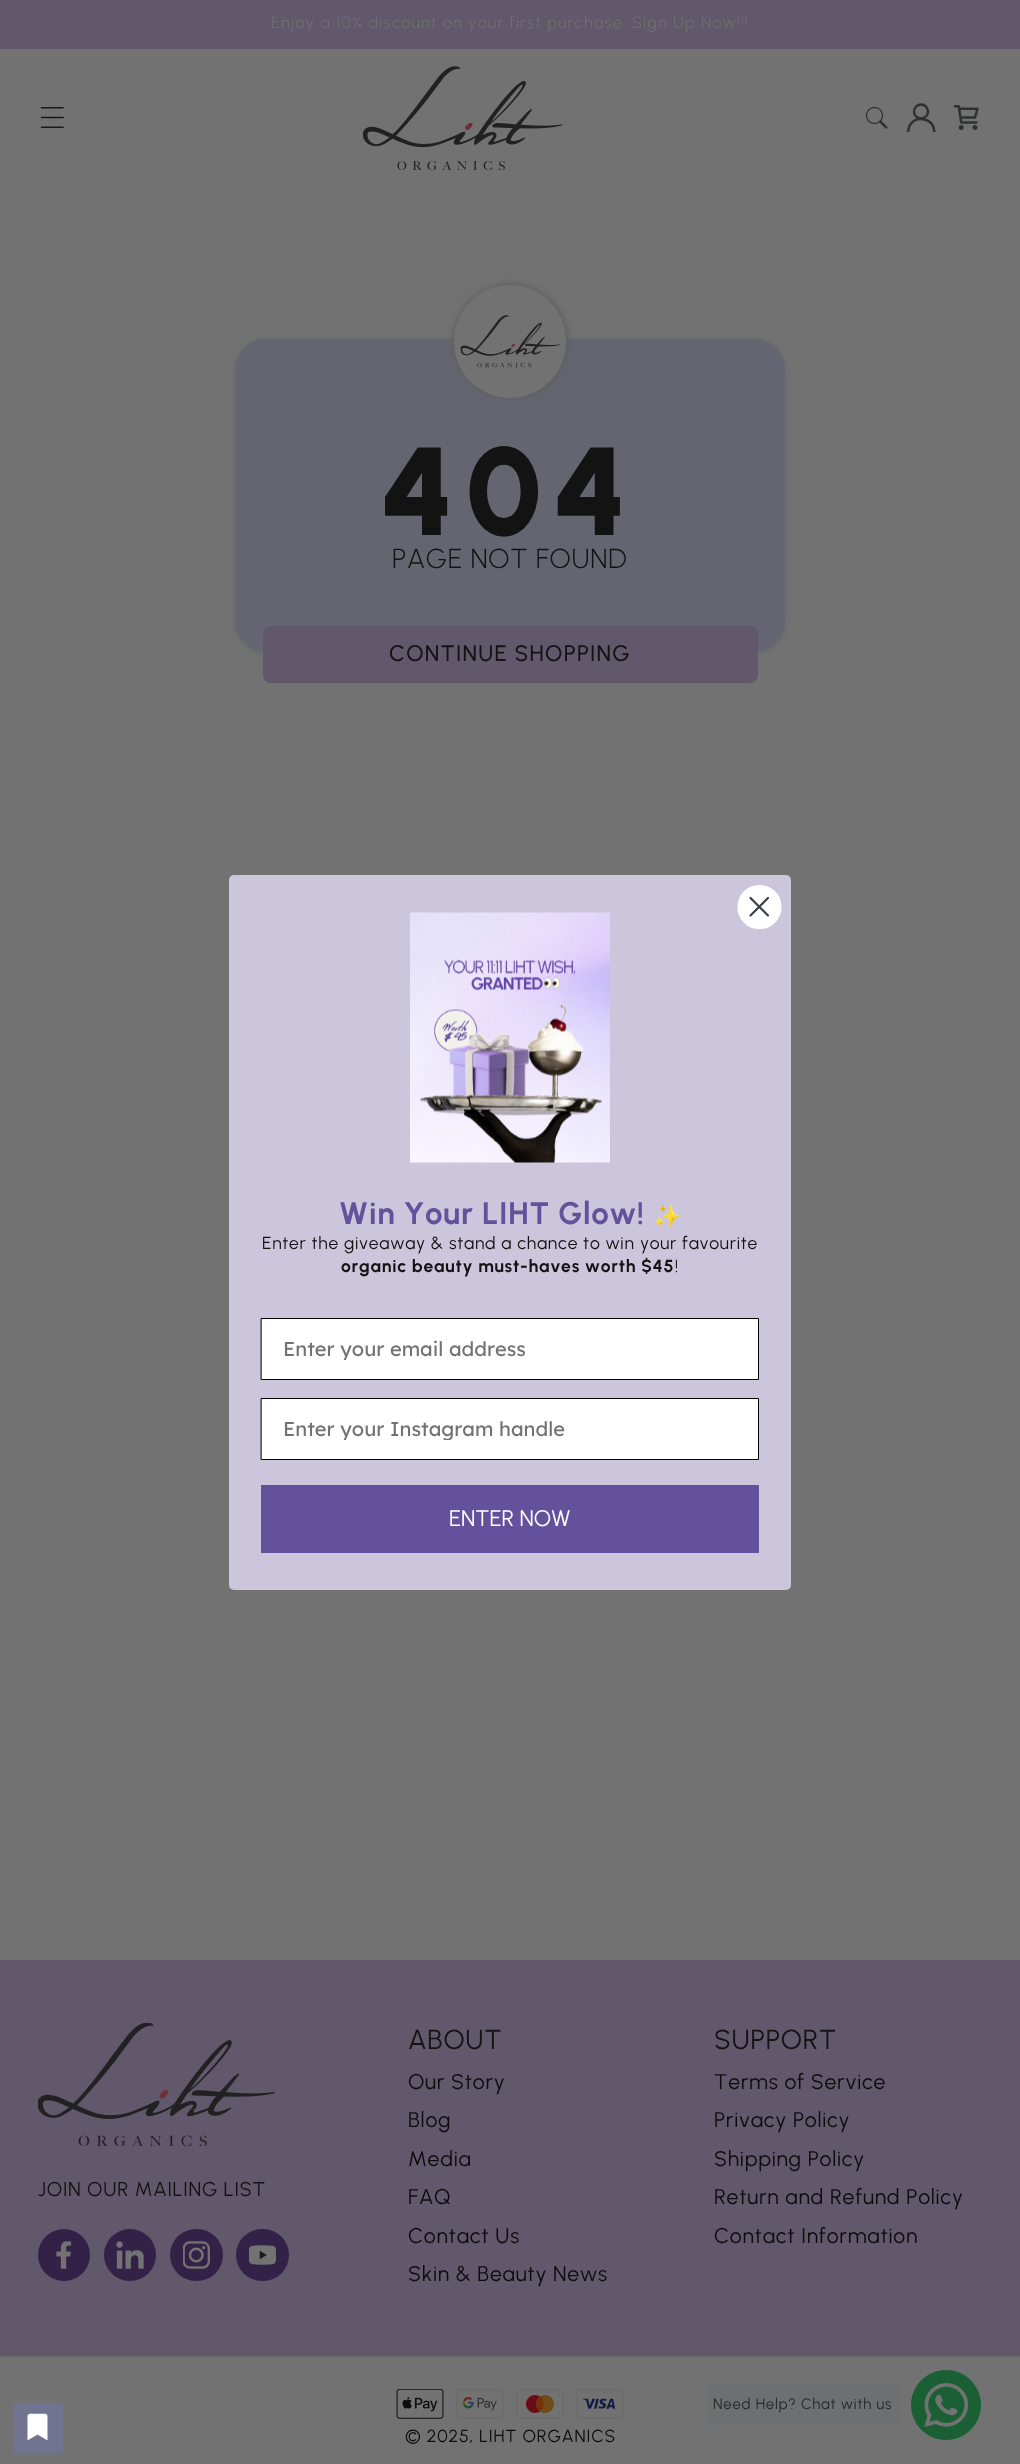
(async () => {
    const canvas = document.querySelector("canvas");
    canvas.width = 1020;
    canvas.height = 2464;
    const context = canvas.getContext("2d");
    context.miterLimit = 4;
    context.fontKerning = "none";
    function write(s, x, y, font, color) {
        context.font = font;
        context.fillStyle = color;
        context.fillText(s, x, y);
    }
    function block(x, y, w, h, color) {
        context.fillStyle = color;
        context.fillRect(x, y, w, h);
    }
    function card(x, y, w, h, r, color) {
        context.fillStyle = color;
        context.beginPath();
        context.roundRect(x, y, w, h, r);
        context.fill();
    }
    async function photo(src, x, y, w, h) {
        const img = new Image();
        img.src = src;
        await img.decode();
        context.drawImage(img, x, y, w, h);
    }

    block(0, 0, 1020, 2464, "rgb(114, 114, 114)");
    block(0, 0, 1020, 48, "rgb(97, 88, 108)");
    block(0, 48, 1020, 1, "rgb(98, 90, 108)");
    context.letterSpacing = "1.25px";
    write("Enjoy a 10% discount on your first purchase. Sign Up Now!!!", 271, 28, "300 16.25px Urbanist", "rgb(114, 114, 114)");
    await photo("media/1.png", 40, 107, 24, 21);
    await photo("media/2.png", 363, 66, 200, 104);
    await photo("media/3.png", 865, 106, 23, 23);
    context.beginPath();
    context.arc(921, 111.5, 7, 0, Math.PI * 2);
    context.strokeStyle = "rgb(47, 48, 48)";
    context.lineWidth = 2.4;
    context.stroke();
    context.beginPath();
    context.moveTo(908, 132);
    context.lineTo(908.5, 129.5);
    context.bezierCurveTo(909.5, 123, 915, 118.5, 921, 119);
    context.bezierCurveTo(927.5, 119, 933, 123, 934, 129.5);
    context.lineTo(934.5, 132);
    context.stroke();
    await photo("media/4.png", 953, 105, 26, 25);
    context.fillStyle = "rgb(101, 101, 114)";
    context.filter = "blur(2.5px)";
    context.beginPath();
    context.roundRect(235, 340, 550, 313, 31);
    context.fill();
    context.filter = "none";
    card(235, 339, 550, 312, 31, "rgb(101, 101, 114)");
    context.fillStyle = "rgb(94, 94, 94)";
    context.filter = "blur(3px)";
    context.beginPath();
    context.roundRect(453, 284, 115, 115, 57.5);
    context.fill();
    context.filter = "none";
    card(454, 285, 112, 113, 56, "rgb(114, 114, 114)");
    await photo("media/5.png", 460, 315, 100, 53);
    context.letterSpacing = "11px";
    write("404", 380, 535, "900 125px Urbanist", "rgb(19, 19, 19)");
    context.letterSpacing = "0.75px";
    write("PAGE NOT FOUND", 392, 568, "300 27.5px Urbanist", "rgb(19, 19, 19)");
    card(263, 626, 495, 57, 8, "rgb(97, 88, 108)");
    context.letterSpacing = "1.25px";
    write("CONTINUE SHOPPING", 389, 661, "500 22.5px Urbanist", "rgb(19, 19, 19)");
    card(229, 875, 562, 715, 5, "rgb(203, 198, 219)");
    context.fillStyle = "rgb(255, 255, 255)";
    context.beginPath();
    context.arc(759.5, 907, 21, 0, Math.PI * 2);
    context.fill();
    context.strokeStyle = "rgb(255, 255, 255)";
    context.lineWidth = 2.2;
    context.stroke();
    context.beginPath();
    context.moveTo(750.5, 898);
    context.lineTo(768, 915.5);
    context.moveTo(750.5, 915.5);
    context.lineTo(768, 898);
    context.closePath();
    context.strokeStyle = "rgb(55, 63, 71)";
    context.lineCap = "round";
    context.lineJoin = "round";
    context.stroke();
    await photo("media/6.png", 410, 912, 200, 251);
    context.letterSpacing = "0.75px";
    write("Win Your LIHT Glow!", 339, 1224, "bold 31.25px Urbanist", "rgb(99, 81, 155)");
    write("✨", 653, 1224, "22.5px Noto Color Emoji", "rgb(99, 81, 155)");
    write("Enter the giveaway & stand a chance to win", 262, 1249, "17.5px Urbanist", "rgb(19, 19, 19)");
    write("your favourite", 640, 1249, "17.5px Urbanist", "rgb(19, 19, 19)");
    write("organic beauty must-haves", 341, 1272, "bold 17.5px Urbanist", "rgb(19, 19, 19)");
    write("worth $45", 585, 1272, "bold 17.5px Urbanist", "rgb(19, 19, 19)");
    write("!", 675, 1272, "17.5px Urbanist", "rgb(19, 19, 19)");
    context.fillStyle = "rgb(255, 255, 255)";
    context.beginPath();
    context.rect(261.5, 1318.5, 497, 61);
    context.fill();
    context.strokeStyle = "rgb(5, 5, 5)";
    context.lineWidth = 1;
    context.lineJoin = "miter";
    context.stroke();
    context.save();
    context.beginPath();
    context.rect(283, 1335, 475, 25);
    context.clip();
    context.letterSpacing = "0px";
    write("Enter your email address", 283, 1356, "20px Lexend", "rgb(114, 114, 114)");
    context.restore();
    context.beginPath();
    context.rect(261.5, 1398.5, 497, 61);
    context.fill();
    context.stroke();
    context.save();
    context.beginPath();
    context.rect(283, 1415, 475, 25);
    context.clip();
    context.letterSpacing = "0px";
    write("Enter your Instagram handle", 283, 1436, "20px Lexend", "rgb(114, 114, 114)");
    context.restore();
    block(261, 1485, 498, 68, "rgb(99, 81, 155)");
    context.letterSpacing = "0px";
    write("ENTER NOW", 449, 1526, "22.5px Urbanist", "rgb(255, 255, 255)");
    block(0, 1960, 1020, 396, "rgb(97, 88, 108)");
    await photo("media/7.png", 38, 2023, 237, 123);
    context.letterSpacing = "0.75px";
    write("JOIN OUR MAILING LIST", 38, 2196, "20px Urbanist", "rgb(19, 19, 19)");
    context.fillStyle = "rgb(51, 33, 71)";
    context.beginPath();
    context.arc(64, 2255, 26, 0, Math.PI * 2);
    context.fill();
    await photo("media/8.png", 56, 2241, 16, 28);
    context.beginPath();
    context.arc(130, 2255, 26, 0, Math.PI * 2);
    context.fill();
    await photo("media/9.png", 116, 2241, 28, 28);
    card(170, 2229, 53, 52, 26, "rgb(51, 33, 71)");
    await photo("media/10.png", 183, 2241, 27, 28);
    card(236, 2229, 53, 52, 26, "rgb(51, 33, 71)");
    await photo("media/11.png", 249, 2245, 27, 20);
    write("ABOUT", 408, 2049, "27.5px Urbanist", "rgb(19, 19, 19)");
    write("Our Story", 408, 2089, "21.25px Urbanist", "rgb(12, 12, 12)");
    write("Blog", 408, 2127, "21.25px Urbanist", "rgb(12, 12, 12)");
    write("Media", 408, 2166, "21.25px Urbanist", "rgb(12, 12, 12)");
    write("FAQ", 408, 2204, "21.25px Urbanist", "rgb(12, 12, 12)");
    write("Contact Us", 408, 2243, "21.25px Urbanist", "rgb(12, 12, 12)");
    write("Skin & Beauty News", 408, 2281, "21.25px Urbanist", "rgb(12, 12, 12)");
    write("SUPPORT", 714, 2049, "27.5px Urbanist", "rgb(19, 19, 19)");
    write("Terms of Service", 714, 2089, "21.25px Urbanist", "rgb(12, 12, 12)");
    write("Privacy Policy", 714, 2127, "21.25px Urbanist", "rgb(12, 12, 12)");
    write("Shipping Policy", 714, 2166, "21.25px Urbanist", "rgb(12, 12, 12)");
    write("Return and Refund Policy", 714, 2204, "21.25px Urbanist", "rgb(12, 12, 12)");
    write("Contact Information", 714, 2243, "21.25px Urbanist", "rgb(12, 12, 12)");
    block(0, 2356, 1020, 1, "rgb(106, 106, 106)");
    await photo("media/12.png", 396, 2389, 48, 30);
    await photo("media/13.png", 456, 2389, 48, 30);
    await photo("media/14.png", 516, 2389, 48, 30);
    await photo("media/15.png", 576, 2389, 48, 30);
    context.letterSpacing = "0.9px";
    write("© 2025, LIHT ORGANICS", 405, 2442, "17.5px Urbanist", "rgb(12, 12, 12)");
    block(13, 2403, 50, 50, "rgb(114, 114, 145)");
    await photo("media/16.png", 27, 2413, 21, 28);
    card(708, 2385, 191, 40, 6, "rgb(110, 111, 112)");
    context.letterSpacing = "0.75px";
    write("Need Help? Chat with us", 713, 2409, "15px Urbanist", "rgb(39, 40, 43)");
    await photo("media/17.png", 911, 2370, 70, 70);
})();
